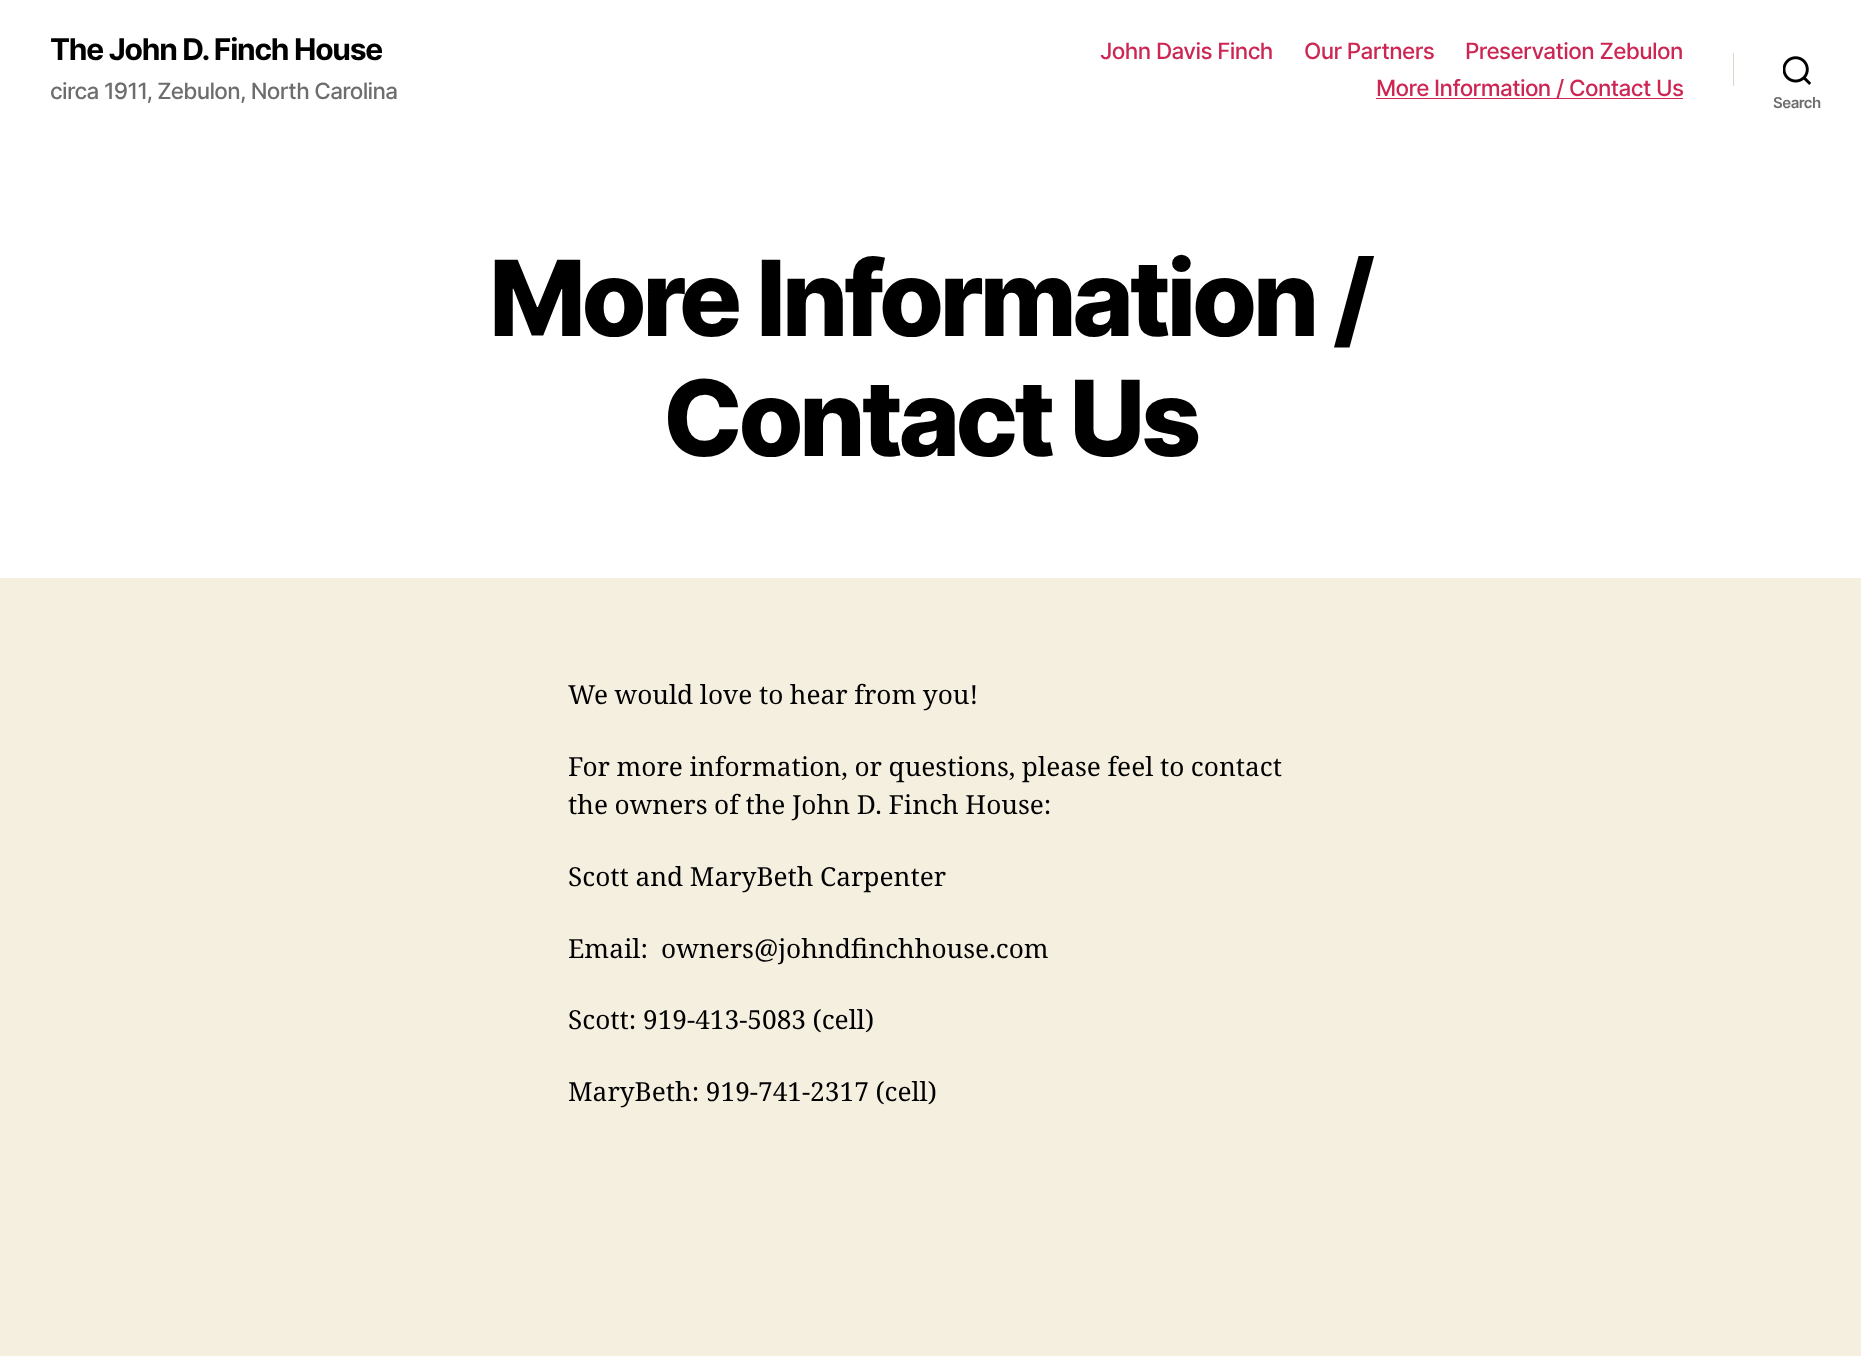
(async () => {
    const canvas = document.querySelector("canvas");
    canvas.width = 1861;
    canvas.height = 1358;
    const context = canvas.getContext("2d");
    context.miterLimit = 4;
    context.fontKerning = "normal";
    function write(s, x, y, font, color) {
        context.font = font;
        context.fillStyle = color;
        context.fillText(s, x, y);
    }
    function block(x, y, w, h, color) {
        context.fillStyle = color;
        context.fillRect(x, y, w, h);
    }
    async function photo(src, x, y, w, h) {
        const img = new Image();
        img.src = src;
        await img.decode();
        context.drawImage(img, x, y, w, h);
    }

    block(0, 0, 1861, 1358, "rgb(245, 239, 224)");
    block(0, 0, 1861, 578, "rgb(255, 255, 255)");
    context.letterSpacing = "-1.25px";
    write("The John D. Finch House", 50, 60, "bold 30px Inter", "rgb(0, 0, 0)");
    context.letterSpacing = "-0.7px";
    write("circa 1911, Zebulon, North Carolina", 50, 99, "500 22.5px Inter", "rgb(109, 109, 109)");
    context.letterSpacing = "-0.6px";
    write("John Davis Finch", 1100, 59, "500 22.5px Inter", "rgb(205, 38, 83)");
    write("Our Partners", 1304, 59, "500 22.5px Inter", "rgb(205, 38, 83)");
    write("Preservation Zebulon", 1465, 59, "500 22.5px Inter", "rgb(205, 38, 83)");
    block(1376, 98, 307, 1, "rgb(205, 38, 83)");
    write("More Information / Contact Us", 1376, 96, "500 22.5px Inter", "rgb(205, 38, 83)");
    block(1733, 53, 1, 33, "rgb(220, 215, 202)");
    await photo("media/1.png", 1783, 56, 28, 29);
    context.letterSpacing = "-0.5px";
    write("Search", 1773, 108, "600 15px Inter", "rgb(109, 109, 109)");
    context.letterSpacing = "-4.4px";
    write("More Information /", 489, 336, "800 105px Inter", "rgb(0, 0, 0)");
    write("Contact Us", 663, 456, "800 105px Inter", "rgb(0, 0, 0)");
    context.letterSpacing = "0px";
    context.wordSpacing = "-0.25px";
    write("We would love to hear from you!", 568, 704, "26.25px Noto Serif", "rgb(0, 0, 0)");
    write("For more information, or questions, please feel to contact", 568, 776, "26.25px Noto Serif", "rgb(0, 0, 0)");
    write("the owners of the John D. Finch House:", 568, 814, "26.25px Noto Serif", "rgb(0, 0, 0)");
    write("Scott and MaryBeth Carpenter", 568, 886, "26.25px Noto Serif", "rgb(0, 0, 0)");
    context.wordSpacing = "0px";
    write("Email:", 568, 958, "26.25px Noto Serif", "rgb(0, 0, 0)");
    write("owners@johndfinchhouse.com", 661, 958, "26.25px Noto Serif", "rgb(0, 0, 0)");
    write("Scott:", 568, 1029, "26.25px Noto Serif", "rgb(0, 0, 0)");
    context.wordSpacing = "-0.25px";
    write("919-413-5083 (cell)", 643, 1029, "26.25px Noto Serif", "rgb(0, 0, 0)");
    write("MaryBeth: 919-741-2317 (cell)", 568, 1101, "26.25px Noto Serif", "rgb(0, 0, 0)");
    block(0, 1356, 1861, 2, "rgb(255, 255, 255)");
})();
